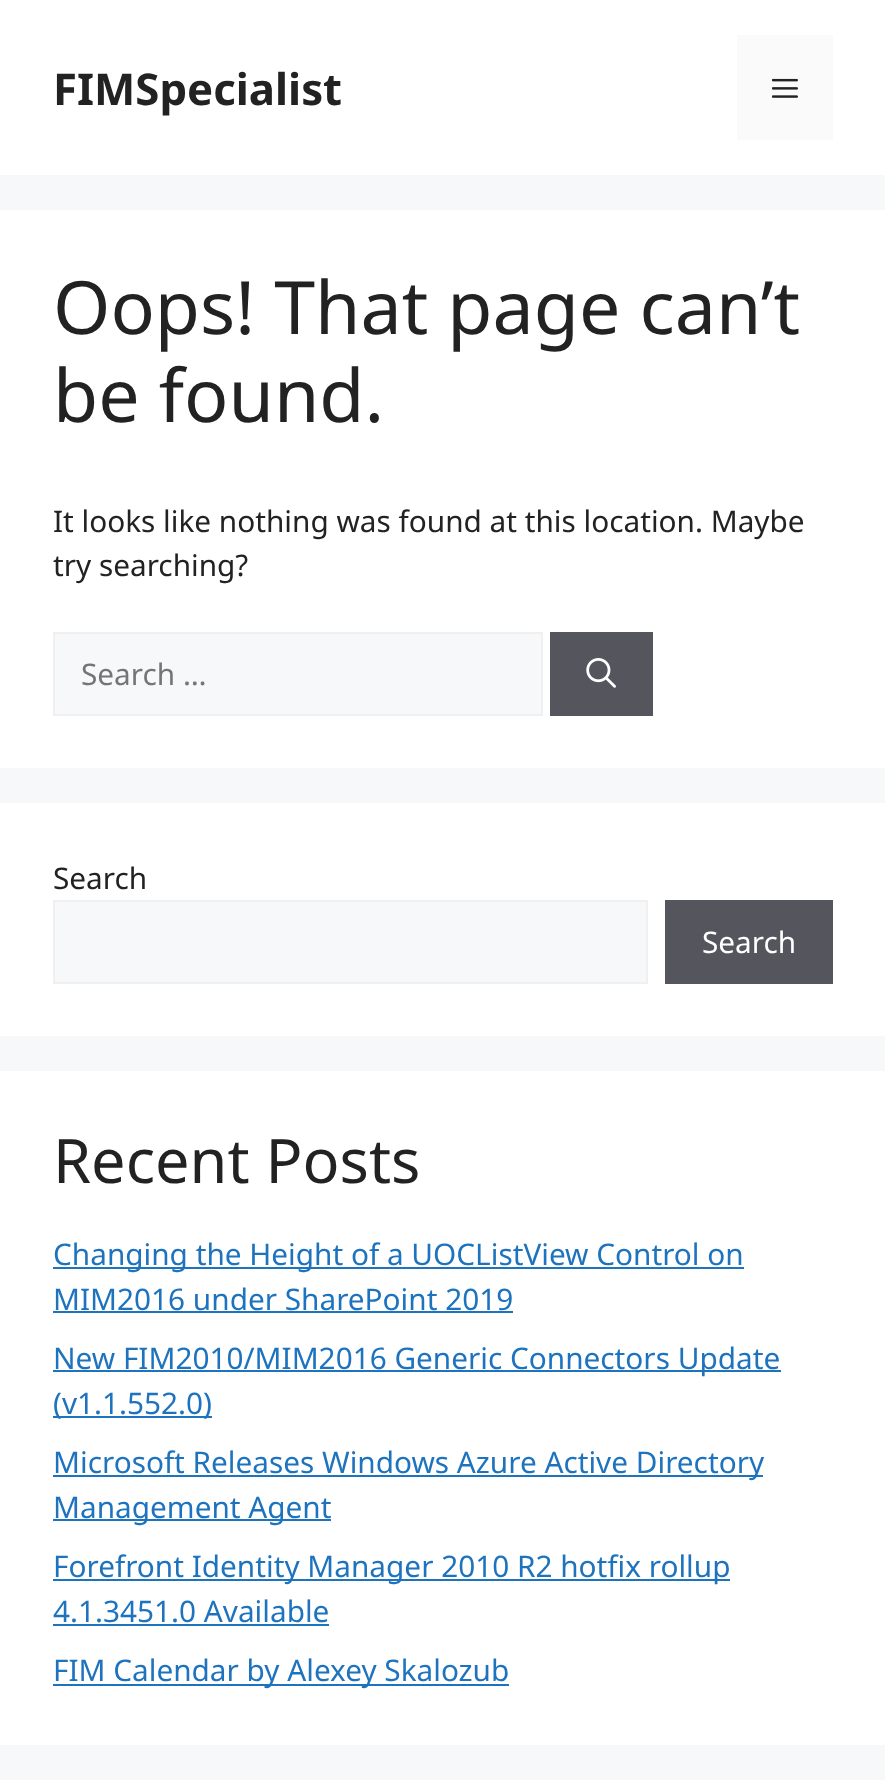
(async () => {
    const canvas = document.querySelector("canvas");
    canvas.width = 885;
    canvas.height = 1788;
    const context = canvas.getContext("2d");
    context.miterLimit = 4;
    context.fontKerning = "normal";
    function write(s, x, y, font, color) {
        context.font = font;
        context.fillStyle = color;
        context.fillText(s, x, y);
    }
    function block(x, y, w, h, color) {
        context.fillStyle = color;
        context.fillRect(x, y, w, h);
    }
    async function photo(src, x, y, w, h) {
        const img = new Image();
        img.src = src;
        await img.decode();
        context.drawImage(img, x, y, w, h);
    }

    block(0, 0, 885, 1788, "rgb(247, 248, 249)");
    block(0, 0, 885, 175, "rgb(255, 255, 255)");
    write("FIMSpecialist", 53, 105, "bold 43.75px Noto Sans", "rgb(34, 34, 34)");
    block(737, 35, 96, 105, "rgb(250, 250, 250)");
    await photo("media/1.png", 772, 78, 26, 20);
    block(0, 210, 885, 558, "rgb(255, 255, 255)");
    write("Oops! That page can’t", 53, 334, "73.5px Noto Sans", "rgb(34, 34, 34)");
    write("be found.", 53, 422, "73.5px Noto Sans", "rgb(34, 34, 34)");
    write("It looks like nothing was found at this location. Maybe", 53, 532, "29.75px Noto Sans", "rgb(34, 34, 34)");
    write("try searching?", 53, 576, "29.75px Noto Sans", "rgb(34, 34, 34)");
    context.fillStyle = "rgb(247, 248, 249)";
    context.beginPath();
    context.rect(54, 633, 488, 82);
    context.fill();
    context.strokeStyle = "rgb(240, 240, 240)";
    context.lineWidth = 2;
    context.stroke();
    write("Search …", 81, 685, "29.75px Noto Sans", "rgb(117, 117, 117)");
    block(550, 632, 103, 84, "rgb(85, 85, 94)");
    await photo("media/2.png", 586, 658, 30, 30);
    block(0, 803, 885, 233, "rgb(255, 255, 255)");
    write("Search", 53, 889, "29.75px Noto Sans", "rgb(34, 34, 34)");
    context.fillStyle = "rgb(247, 248, 249)";
    context.beginPath();
    context.rect(54, 901, 593, 82);
    context.fill();
    context.stroke();
    block(665, 900, 168, 84, "rgb(85, 85, 94)");
    write("Search", 702, 953, "29.75px Noto Sans", "rgb(255, 255, 255)");
    block(0, 1071, 885, 674, "rgb(255, 255, 255)");
    write("Recent Posts", 53, 1183, "61.25px Noto Sans", "rgb(34, 34, 34)");
    block(53, 1267, 691, 2, "rgb(30, 115, 190)");
    write("Changing the Height of a UOCListView Control on", 53, 1265, "29.75px Noto Sans", "rgb(30, 115, 190)");
    write("MIM2016 under SharePoint 2019", 53, 1310, "29.75px Noto Sans", "rgb(30, 115, 190)");
    block(53, 1311, 460, 2, "rgb(30, 115, 190)");
    block(53, 1370, 728, 2, "rgb(30, 115, 190)");
    write("New FIM2010/MIM2016 Generic Connectors Update", 53, 1369, "29.75px Noto Sans", "rgb(30, 115, 190)");
    block(53, 1416, 159, 2, "rgb(30, 115, 190)");
    write("(v1.1.552.0)", 53, 1414, "29.75px Noto Sans", "rgb(30, 115, 190)");
    block(53, 1475, 710, 2, "rgb(30, 115, 190)");
    write("Microsoft Releases Windows Azure Active Directory", 53, 1473, "29.75px Noto Sans", "rgb(30, 115, 190)");
    block(53, 1519, 278, 2, "rgb(30, 115, 190)");
    write("Management Agent", 53, 1518, "29.75px Noto Sans", "rgb(30, 115, 190)");
    block(53, 1579, 677, 2, "rgb(30, 115, 190)");
    write("Forefront Identity Manager 2010 R2 hotfix rollup", 53, 1577, "29.75px Noto Sans", "rgb(30, 115, 190)");
    write("4.1.3451.0 Available", 53, 1622, "29.75px Noto Sans", "rgb(30, 115, 190)");
    block(53, 1624, 276, 2, "rgb(30, 115, 190)");
    block(53, 1684, 456, 2, "rgb(30, 115, 190)");
    write("FIM Calendar by Alexey Skalozub", 53, 1681, "29.75px Noto Sans", "rgb(30, 115, 190)");
    block(0, 1780, 885, 8, "rgb(255, 255, 255)");
})();
